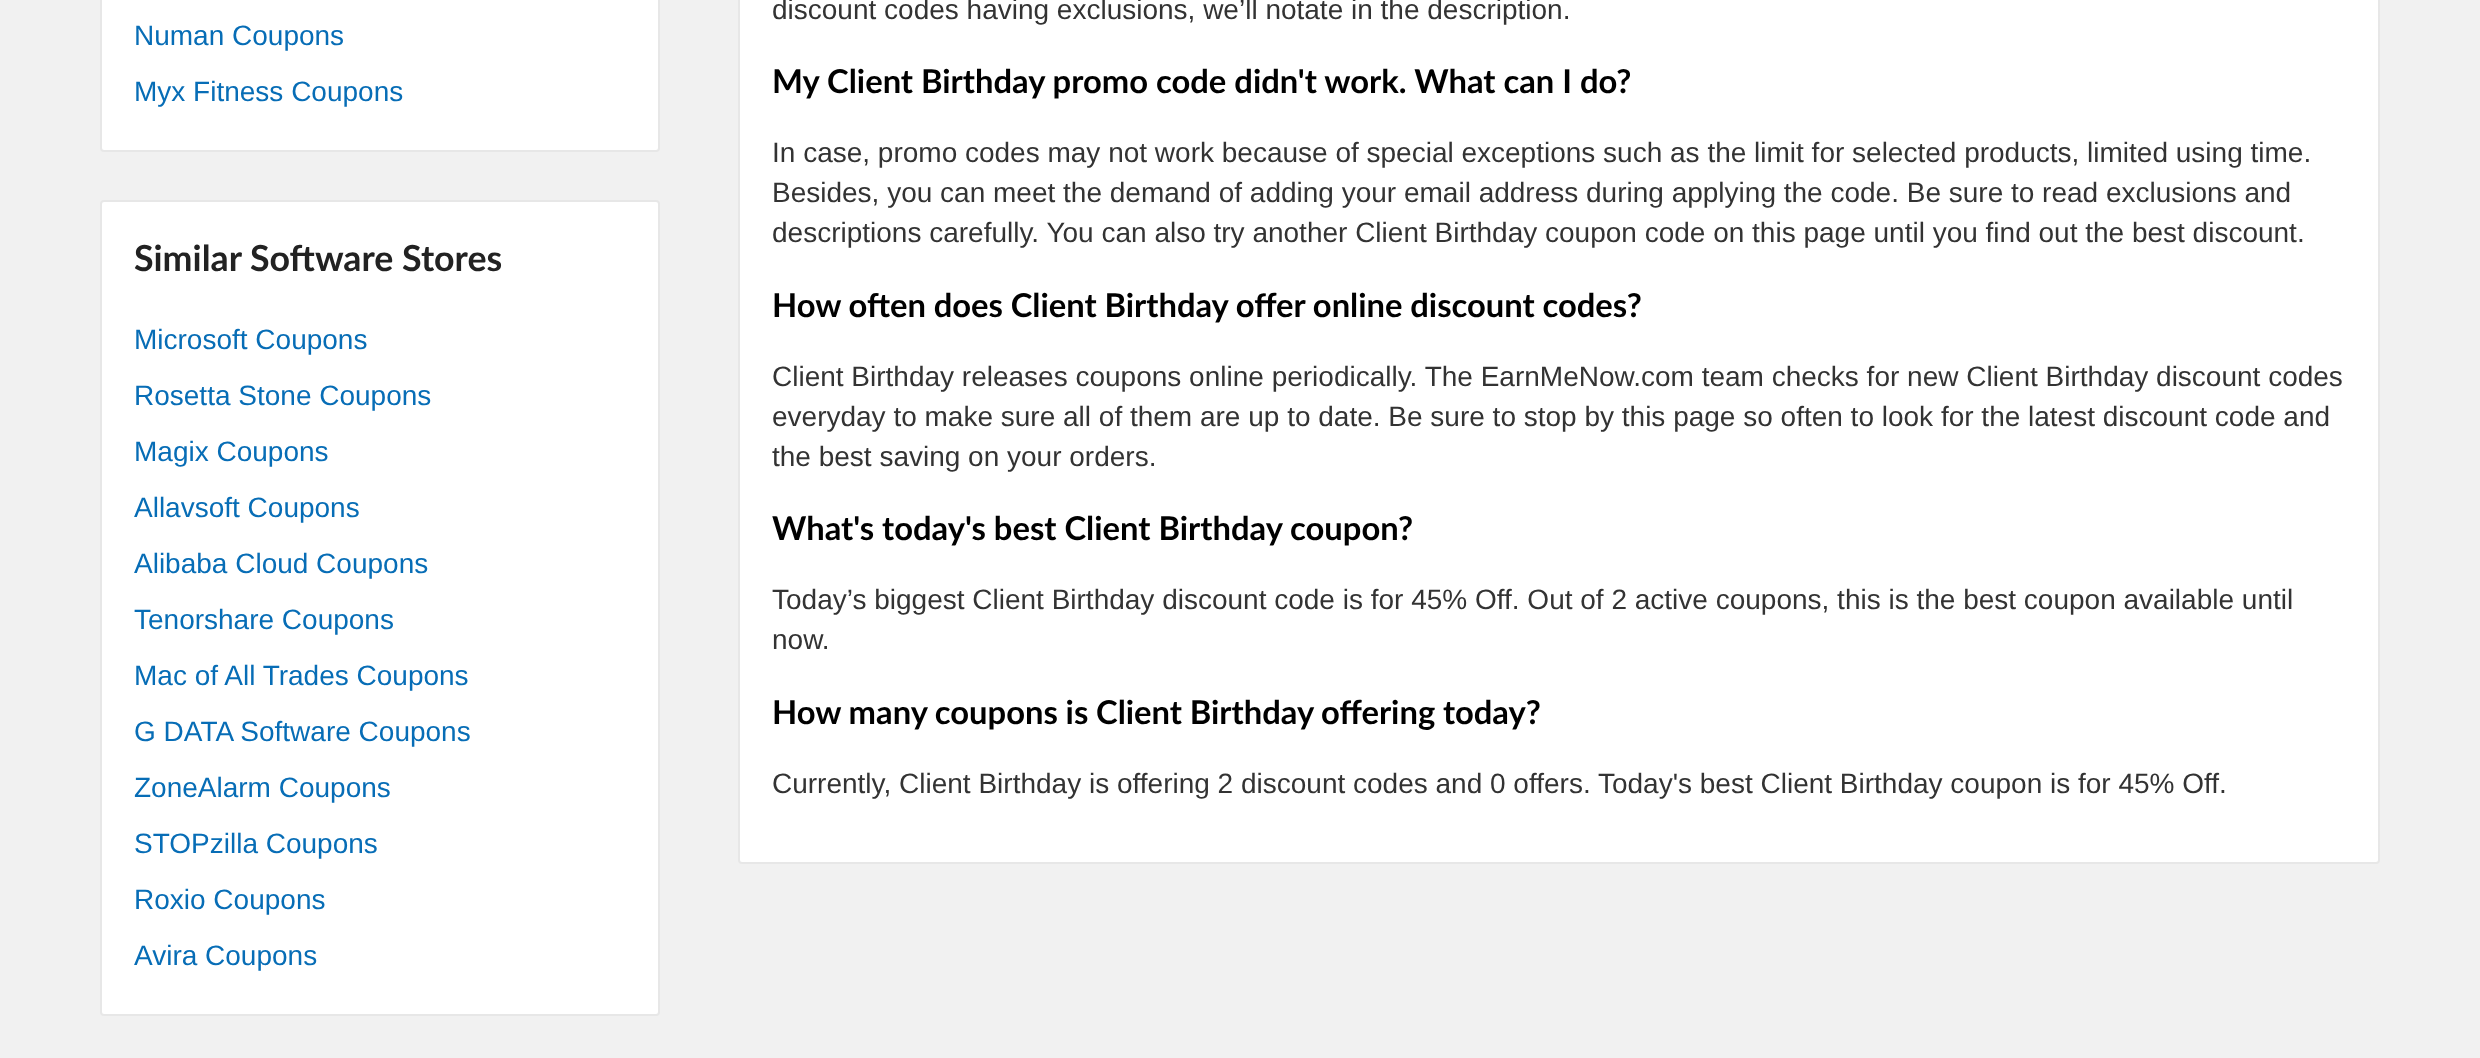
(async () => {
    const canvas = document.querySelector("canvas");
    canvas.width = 2480;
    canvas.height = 1058;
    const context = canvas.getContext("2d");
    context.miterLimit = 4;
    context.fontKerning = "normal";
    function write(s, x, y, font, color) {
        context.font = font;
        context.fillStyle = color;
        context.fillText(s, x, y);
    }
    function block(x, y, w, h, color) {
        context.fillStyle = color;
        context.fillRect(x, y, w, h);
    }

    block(0, 0, 2480, 1058, "rgb(241, 241, 241)");
    context.fillStyle = "rgb(255, 255, 255)";
    context.beginPath();
    context.roundRect(101, -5, 558, 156, 3);
    context.fill();
    context.strokeStyle = "rgb(231, 231, 231)";
    context.lineWidth = 2;
    context.stroke();
    write("Numan Coupons", 134, 45, "28px Liberation Sans", "rgb(7, 109, 182)");
    write("Myx Fitness Coupons", 134, 101, "28px Liberation Sans", "rgb(7, 109, 182)");
    context.fillStyle = "rgb(255, 255, 255)";
    context.beginPath();
    context.roundRect(101, 201, 558, 814, 3);
    context.fill();
    context.stroke();
    write("Similar Software Stores", 134, 271, "bold 35.75px Lato", "rgb(34, 34, 34)");
    write("Microsoft Coupons", 134, 349, "28px Liberation Sans", "rgb(7, 109, 182)");
    write("Rosetta Stone Coupons", 134, 405, "28px Liberation Sans", "rgb(7, 109, 182)");
    write("Magix Coupons", 134, 461, "28px Liberation Sans", "rgb(7, 109, 182)");
    write("Allavsoft Coupons", 134, 517, "28px Liberation Sans", "rgb(7, 109, 182)");
    write("Alibaba Cloud Coupons", 134, 573, "28px Liberation Sans", "rgb(7, 109, 182)");
    write("Tenorshare Coupons", 134, 629, "28px Liberation Sans", "rgb(7, 109, 182)");
    write("Mac of All Trades Coupons", 134, 685, "28px Liberation Sans", "rgb(7, 109, 182)");
    write("G DATA Software Coupons", 134, 741, "28px Liberation Sans", "rgb(7, 109, 182)");
    write("ZoneAlarm Coupons", 134, 797, "28px Liberation Sans", "rgb(7, 109, 182)");
    write("STOPzilla Coupons", 134, 853, "28px Liberation Sans", "rgb(7, 109, 182)");
    write("Roxio Coupons", 134, 909, "28px Liberation Sans", "rgb(7, 109, 182)");
    write("Avira Coupons", 134, 965, "28px Liberation Sans", "rgb(7, 109, 182)");
    context.fillStyle = "rgb(255, 255, 255)";
    context.beginPath();
    context.roundRect(739, -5, 1640, 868, 3);
    context.fill();
    context.stroke();
    write("discount codes having exclusions, we’ll notate in the description.", 772, 19, "28px Liberation Sans", "rgb(51, 51, 51)");
    write("My Client Birthday promo code didn't work. What can I do?", 772, 93, "bold 32.75px Lato", "rgb(0, 0, 0)");
    write("In case, promo codes may not work because of special exceptions such as the limit for selected products, limited using time.", 772, 162, "28px Liberation Sans", "rgb(51, 51, 51)");
    write("Besides, you can meet the demand of adding your email address during applying the code. Be sure to read exclusions and", 772, 202, "28px Liberation Sans", "rgb(51, 51, 51)");
    write("descriptions carefully. You can also try another Client Birthday coupon code on this page until you find out the best discount.", 772, 242, "28px Liberation Sans", "rgb(51, 51, 51)");
    context.wordSpacing = "-0.25px";
    write("How often does Client Birthday offer online discount codes?", 772, 317, "bold 32.75px Lato", "rgb(0, 0, 0)");
    context.wordSpacing = "0px";
    write("Client Birthday releases coupons online periodically. The EarnMeNow.com team checks for new Client Birthday discount codes", 772, 386, "28px Liberation Sans", "rgb(51, 51, 51)");
    write("everyday to make sure all of them are up to date. Be sure to stop by this page so often to look for the latest discount code and", 772, 426, "28px Liberation Sans", "rgb(51, 51, 51)");
    write("the best saving on your orders.", 772, 466, "28px Liberation Sans", "rgb(51, 51, 51)");
    write("What's today's best Client Birthday coupon?", 772, 540, "bold 32.75px Lato", "rgb(0, 0, 0)");
    write("Today’s biggest Client Birthday discount code is for 45% Off. Out of 2 active coupons, this is the best coupon available until", 772, 609, "28px Liberation Sans", "rgb(51, 51, 51)");
    write("now.", 772, 649, "28px Liberation Sans", "rgb(51, 51, 51)");
    context.wordSpacing = "-0.25px";
    write("How many coupons is Client Birthday offering today?", 772, 724, "bold 32.75px Lato", "rgb(0, 0, 0)");
    context.wordSpacing = "0px";
    write("Currently, Client Birthday is offering 2 discount codes and 0 offers. Today's best Client Birthday coupon is for 45% Off.", 772, 793, "28px Liberation Sans", "rgb(51, 51, 51)");
})();
